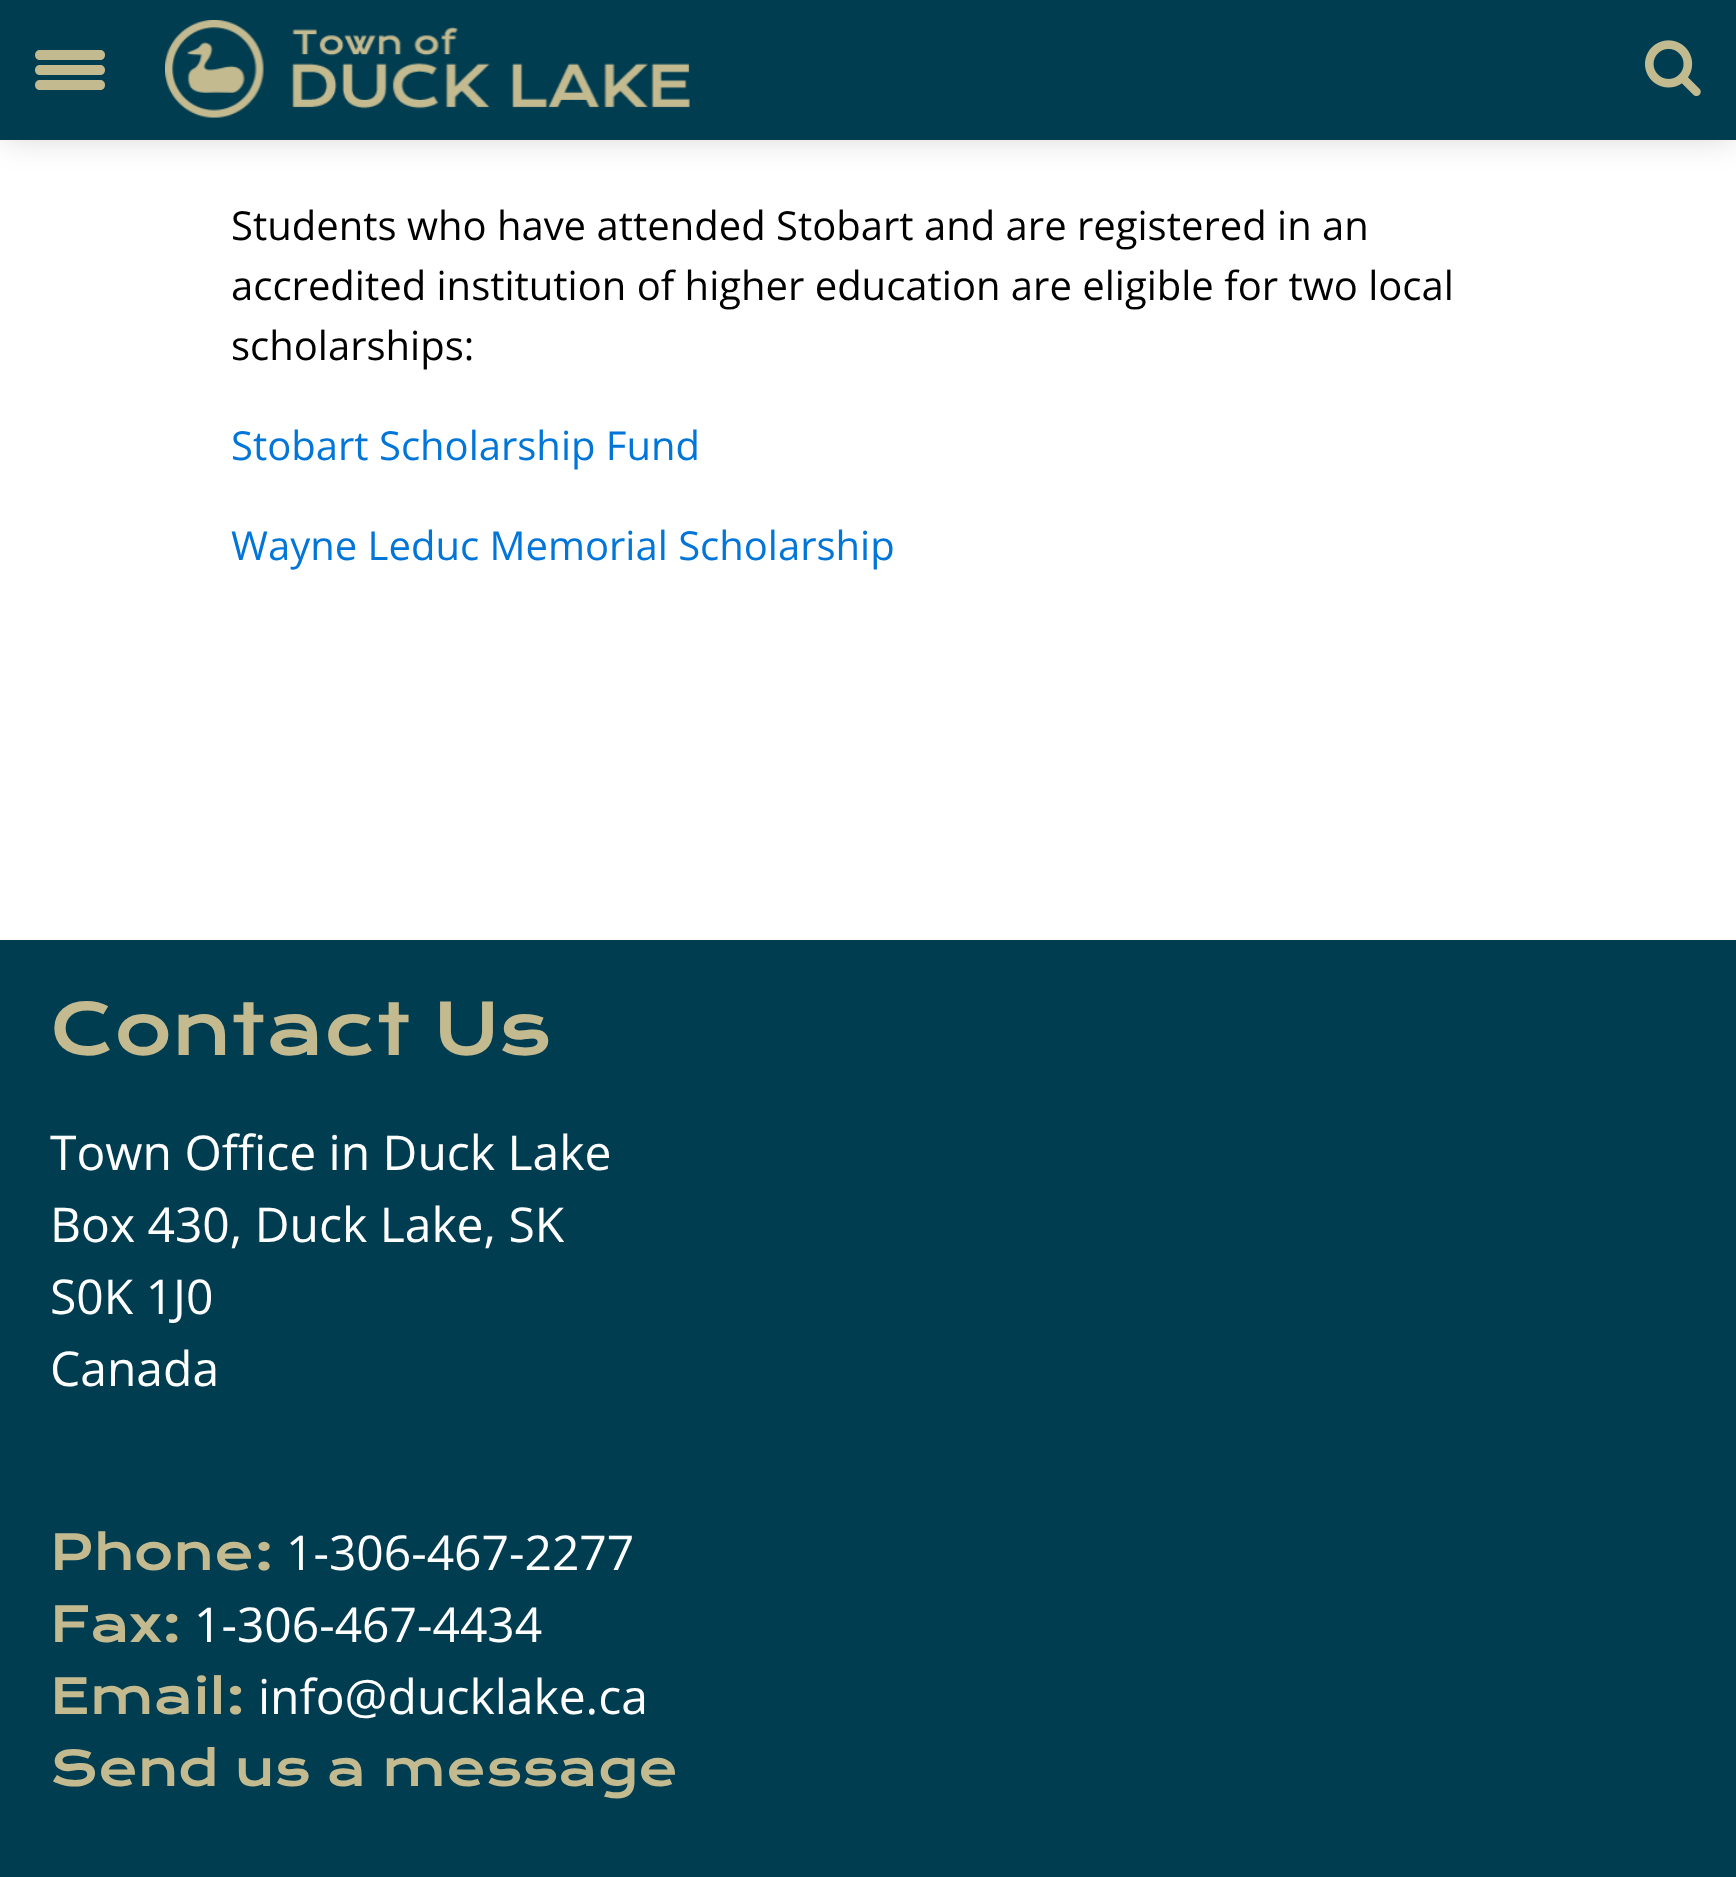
(async () => {
    const canvas = document.querySelector("canvas");
    canvas.width = 1736;
    canvas.height = 1877;
    const context = canvas.getContext("2d");
    context.miterLimit = 4;
    context.fontKerning = "normal";
    function write(s, x, y, font, color) {
        context.font = font;
        context.fillStyle = color;
        context.fillText(s, x, y);
    }
    function block(x, y, w, h, color) {
        context.fillStyle = color;
        context.fillRect(x, y, w, h);
    }
    async function photo(src, x, y, w, h) {
        const img = new Image();
        img.src = src;
        await img.decode();
        context.drawImage(img, x, y, w, h);
    }

    block(0, 0, 1736, 1877, "rgb(255, 255, 255)");
    context.fillStyle = "rgba(0, 0, 0, 0.17)";
    context.filter = "blur(16px)";
    context.beginPath();
    context.rect(3, 3, 1732, 135);
    context.fill();
    context.filter = "none";
    block(0, 0, 1736, 140, "rgb(0, 61, 81)");
    context.fillStyle = "rgb(195, 186, 144)";
    context.beginPath();
    context.moveTo(100, 75);
    context.lineTo(40, 75);
    context.bezierCurveTo(37, 75, 35, 73, 35, 70);
    context.bezierCurveTo(35, 67, 37, 65, 40, 65);
    context.lineTo(100, 65);
    context.bezierCurveTo(103, 65, 105, 67, 105, 70);
    context.bezierCurveTo(105, 73, 103, 75, 100, 75);
    context.closePath();
    context.fill();
    context.beginPath();
    context.moveTo(100, 60);
    context.lineTo(40, 60);
    context.bezierCurveTo(37, 60, 35, 58, 35, 55);
    context.bezierCurveTo(35, 52, 37, 50, 40, 50);
    context.lineTo(100, 50);
    context.bezierCurveTo(103, 50, 105, 52, 105, 55);
    context.bezierCurveTo(105, 58, 103, 60, 100, 60);
    context.closePath();
    context.fill();
    context.beginPath();
    context.moveTo(100, 90);
    context.lineTo(40, 90);
    context.bezierCurveTo(37, 90, 35, 88, 35, 85);
    context.bezierCurveTo(35, 82, 37, 80, 40, 80);
    context.lineTo(100, 80);
    context.bezierCurveTo(103, 80, 105, 82, 105, 85);
    context.bezierCurveTo(105, 88, 103, 90, 100, 90);
    context.closePath();
    context.fill();
    await photo("media/1.png", 165, 20, 525, 98);
    await photo("media/2.png", 1645, 40, 56, 57);
    write("Students who have attended Stobart and are registered in an", 231, 240, "40px Open Sans", "rgb(0, 0, 0)");
    write("accredited institution of higher education are eligible for two local", 231, 300, "40px Open Sans", "rgb(0, 0, 0)");
    write("scholarships:", 231, 360, "40px Open Sans", "rgb(0, 0, 0)");
    write("Stobart Scholarship Fund", 231, 460, "40px Open Sans", "rgb(2, 117, 216)");
    write("Wayne Leduc Memorial Scholarship", 231, 560, "40px Open Sans", "rgb(2, 117, 216)");
    block(0, 940, 1736, 937, "rgb(0, 61, 81)");
    write("Contact Us", 50, 1055, "70px Krona One", "rgb(195, 186, 144)");
    write("Town Office in Duck Lake", 50, 1170, "48px Open Sans", "rgb(255, 255, 255)");
    write("Box 430, Duck Lake, SK", 50, 1242, "48px Open Sans", "rgb(255, 255, 255)");
    write("S0K 1J0", 50, 1314, "48px Open Sans", "rgb(255, 255, 255)");
    write("Canada", 50, 1386, "48px Open Sans", "rgb(255, 255, 255)");
    write("Phone:", 50, 1570, "48px Krona One", "rgb(195, 186, 144)");
    write("1-306-467-2277", 286, 1570, "48px Open Sans", "rgb(255, 255, 255)");
    write("Fax:", 50, 1642, "48px Krona One", "rgb(195, 186, 144)");
    write("1-306-467-4434", 194, 1642, "48px Open Sans", "rgb(255, 255, 255)");
    write("Email:", 50, 1714, "48px Krona One", "rgb(195, 186, 144)");
    write("info@ducklake.ca", 258, 1714, "48px Open Sans", "rgb(255, 255, 255)");
    write("Send us a message", 50, 1786, "48px Krona One", "rgb(195, 186, 144)");
})();
